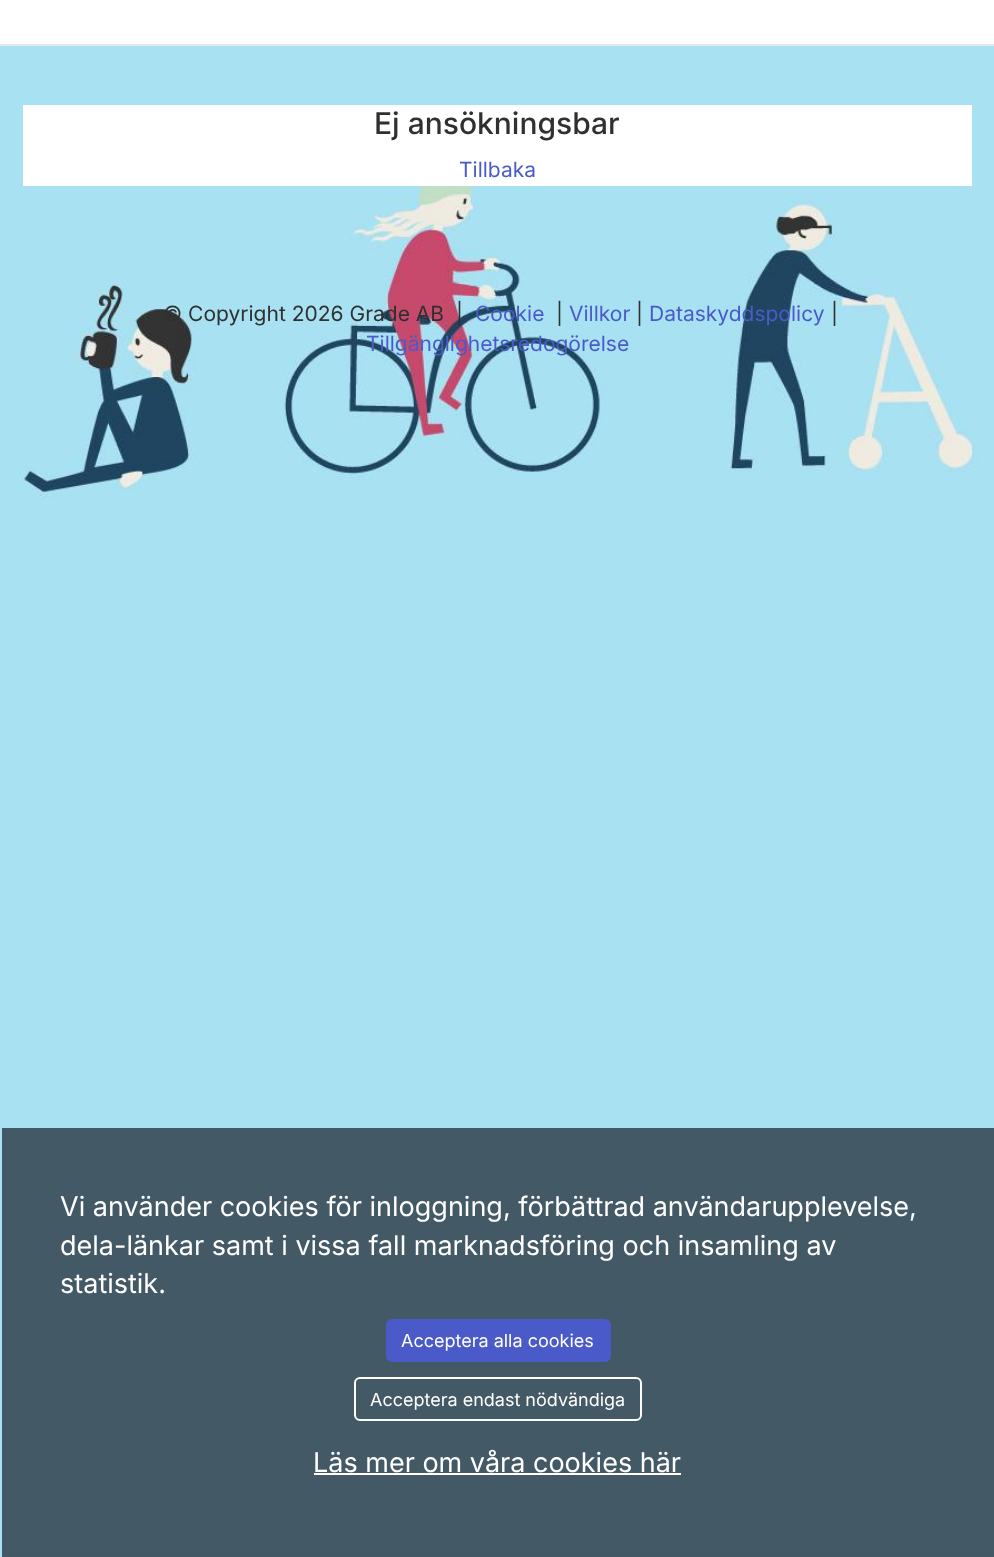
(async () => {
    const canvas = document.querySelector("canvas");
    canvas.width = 994;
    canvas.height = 1557;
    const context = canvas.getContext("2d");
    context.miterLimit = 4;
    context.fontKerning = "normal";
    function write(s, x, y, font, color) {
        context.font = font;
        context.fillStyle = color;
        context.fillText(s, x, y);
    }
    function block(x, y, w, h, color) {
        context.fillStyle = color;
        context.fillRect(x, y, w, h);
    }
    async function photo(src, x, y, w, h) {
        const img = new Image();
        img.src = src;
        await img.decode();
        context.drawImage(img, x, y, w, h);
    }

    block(0, 0, 994, 1557, "rgb(255, 255, 255)");
    block(0, 44, 994, 2, "rgb(231, 231, 231)");
    await photo("media/1.png", 0, 46, 994, 1511);
    block(23, 105, 949, 81, "rgb(255, 255, 255)");
    write("Ej ansökningsbar", 374, 134, "500 30px Inter", "rgb(47, 48, 48)");
    write("Tillbaka", 459, 177, "21px Inter", "rgb(74, 91, 201)");
    write("© Copyright 2026 Grade AB", 163, 321, "21px Inter", "rgb(47, 48, 48)");
    write("|", 456, 321, "21px Inter", "rgb(47, 48, 48)");
    write("Cookie", 475, 321, "21px Inter", "rgb(74, 91, 201)");
    write("|", 556, 321, "21px Inter", "rgb(47, 48, 48)");
    write("Villkor", 569, 321, "21px Inter", "rgb(74, 91, 201)");
    write("|", 636, 321, "21px Inter", "rgb(47, 48, 48)");
    write("Dataskyddspolicy", 649, 321, "21px Inter", "rgb(74, 91, 201)");
    write("|", 831, 321, "21px Inter", "rgb(47, 48, 48)");
    write("Tillgänglighetsredogörelse", 366, 351, "21px Inter", "rgb(74, 91, 201)");
    block(2, 1128, 992, 429, "rgba(56, 74, 87, 0.9)");
    write("Vi använder cookies för inloggning, förbättrad användarupplevelse,", 60, 1216, "27px Inter", "rgb(255, 255, 255)");
    write("dela-länkar samt i vissa fall marknadsföring och insamling av", 60, 1255, "27px Inter", "rgb(255, 255, 255)");
    write("statistik.", 60, 1293, "27px Inter", "rgb(255, 255, 255)");
    context.fillStyle = "rgb(74, 91, 201)";
    context.beginPath();
    context.roundRect(387, 1320, 223, 41, 5);
    context.fill();
    context.strokeStyle = "rgb(74, 91, 201)";
    context.lineWidth = 2;
    context.stroke();
    write("Acceptera alla cookies", 401, 1347, "18px Inter", "rgb(255, 255, 255)");
    context.beginPath();
    context.roundRect(355, 1378, 286, 42, 5);
    context.strokeStyle = "rgb(255, 255, 255)";
    context.stroke();
    write("Acceptera endast nödvändiga", 370, 1406, "18px Inter", "rgb(255, 255, 255)");
    write("Läs mer om våra cookies här", 313, 1472, "27px Inter", "rgb(255, 255, 255)");
    block(314, 1473, 367, 2, "rgb(255, 255, 255)");
})();
